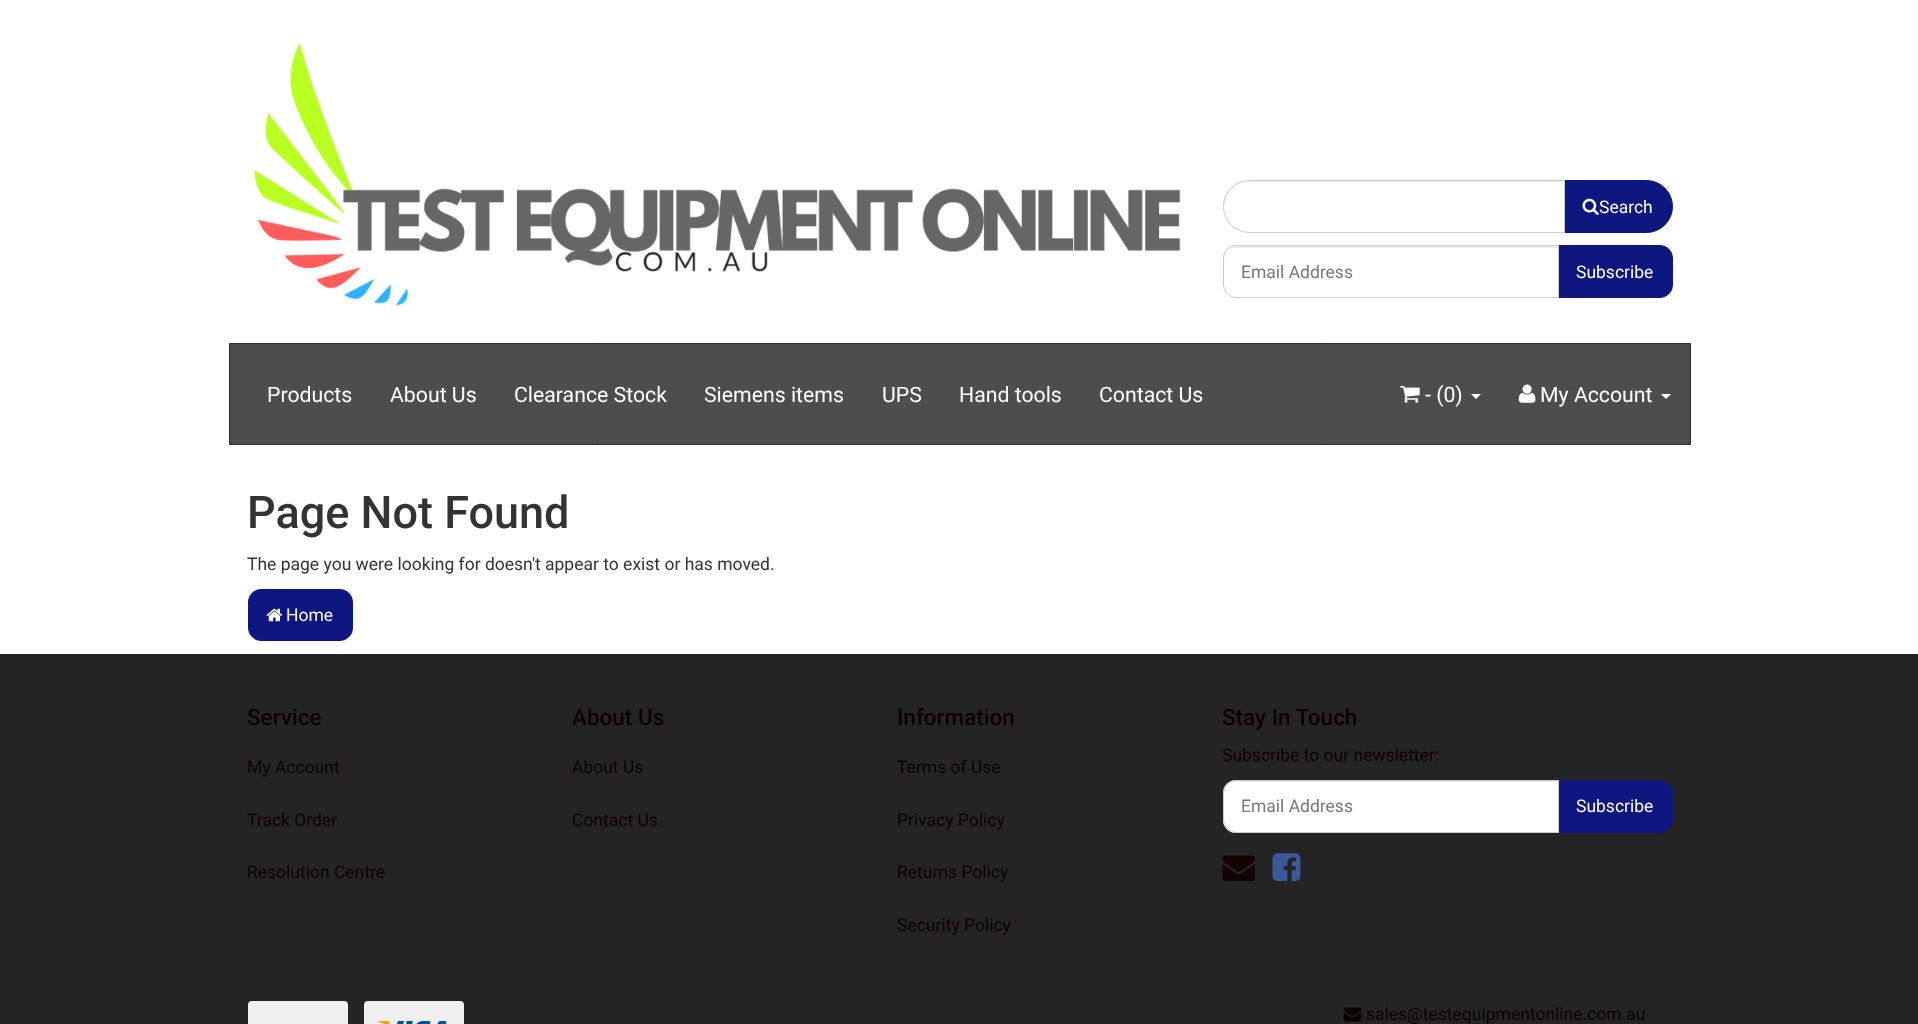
(async () => {
    const canvas = document.querySelector("canvas");
    canvas.width = 1918;
    canvas.height = 1024;
    const context = canvas.getContext("2d");
    context.miterLimit = 4;
    context.fontKerning = "normal";
    function write(s, x, y, font, color) {
        context.font = font;
        context.fillStyle = color;
        context.fillText(s, x, y);
    }
    function block(x, y, w, h, color) {
        context.fillStyle = color;
        context.fillRect(x, y, w, h);
    }
    function card(x, y, w, h, r, color) {
        context.fillStyle = color;
        context.beginPath();
        context.roundRect(x, y, w, h, r);
        context.fill();
    }
    async function photo(src, x, y, w, h) {
        const img = new Image();
        img.src = src;
        await img.decode();
        context.drawImage(img, x, y, w, h);
    }

    block(0, 0, 1918, 1024, "rgb(255, 255, 255)");
    await photo("media/1.png", 254, 42, 927, 264);
    context.fillStyle = "rgb(14, 22, 128)";
    context.beginPath();
    context.roundRect(1564.5, 180.5, 108, 52, [0, 26, 26, 0]);
    context.fill();
    context.strokeStyle = "rgb(14, 22, 128)";
    context.stroke();
    context.fillStyle = "rgb(255, 255, 255)";
    context.beginPath();
    context.roundRect(1223, 180, 342, 53, [26.5, 0, 0, 26.5]);
    context.fill();
    context.fillStyle = "rgb(236, 236, 236)";
    context.beginPath();
    context.moveTo(1249, 182);
    context.lineTo(1564, 182);
    context.lineTo(1564, 181);
    context.lineTo(1249, 181);
    context.bezierCurveTo(1235, 181, 1223, 193, 1224, 207);
    context.bezierCurveTo(1225, 193, 1235, 182, 1249, 182);
    context.closePath();
    context.fill();
    context.beginPath();
    context.roundRect(1223.5, 180.5, 341, 52, [26, 0, 0, 26]);
    context.strokeStyle = "rgb(204, 204, 204)";
    context.stroke();
    await photo("media/2.png", 1582, 198, 17, 17);
    write("Search", 1599, 213, "17.5px Roboto", "rgb(255, 255, 255)");
    context.fillStyle = "rgb(14, 22, 128)";
    context.beginPath();
    context.roundRect(1558.5, 245.5, 114, 52, [0, 12.5, 12.5, 0]);
    context.fill();
    context.strokeStyle = "rgb(14, 22, 128)";
    context.stroke();
    context.fillStyle = "rgb(255, 255, 255)";
    context.beginPath();
    context.roundRect(1223, 245, 336, 53, [13, 0, 0, 13]);
    context.fill();
    context.fillStyle = "rgb(236, 236, 236)";
    context.beginPath();
    context.moveTo(1235, 248);
    context.lineTo(1558, 248);
    context.lineTo(1558, 246);
    context.lineTo(1235, 246);
    context.bezierCurveTo(1229, 246, 1224, 251, 1224, 257);
    context.lineTo(1224, 259);
    context.bezierCurveTo(1225, 253, 1227, 248, 1235, 248);
    context.closePath();
    context.fill();
    context.beginPath();
    context.roundRect(1223.5, 245.5, 335, 52, [12.5, 0, 0, 12.5]);
    context.strokeStyle = "rgb(204, 204, 204)";
    context.stroke();
    write("Email Address", 1241, 278, "17.5px Roboto", "rgb(119, 119, 119)");
    write("Subscribe", 1576, 278, "17.5px Roboto", "rgb(255, 255, 255)");
    context.fillStyle = "rgb(77, 77, 77)";
    context.beginPath();
    context.rect(229.5, 343.5, 1461, 101);
    context.fill();
    context.strokeStyle = "rgb(45, 45, 45)";
    context.stroke();
    write("Products", 267, 402, "21.25px Roboto", "rgb(255, 255, 255)");
    write("About Us", 390, 402, "21.25px Roboto", "rgb(255, 255, 255)");
    write("Clearance Stock", 514, 402, "21.25px Roboto", "rgb(255, 255, 255)");
    write("Siemens items", 704, 402, "21.25px Roboto", "rgb(255, 255, 255)");
    write("UPS", 882, 402, "21.25px Roboto", "rgb(255, 255, 255)");
    write("Hand tools", 959, 402, "21.25px Roboto", "rgb(255, 255, 255)");
    write("Contact Us", 1099, 402, "21.25px Roboto", "rgb(255, 255, 255)");
    await photo("media/3.png", 1400, 386, 20, 17);
    write("- (0)", 1425, 402, "21.25px Roboto", "rgb(255, 255, 255)");
    context.beginPath();
    context.moveTo(1471, 394);
    context.lineTo(1481, 394);
    context.lineTo(1476, 399);
    context.closePath();
    context.fill();
    await photo("media/4.png", 1518, 384, 18, 19);
    write("My Account", 1540, 402, "21.25px Roboto", "rgb(255, 255, 255)");
    context.beginPath();
    context.moveTo(1661, 394);
    context.lineTo(1671, 394);
    context.lineTo(1666, 399);
    context.closePath();
    context.fill();
    write("Page Not Found", 247, 528, "500 45px Roboto", "rgb(51, 51, 51)");
    write("The page you were looking for doesn't appear to exist or has moved.", 247, 570, "17.5px Roboto", "rgb(51, 51, 51)");
    context.fillStyle = "rgb(14, 22, 128)";
    context.beginPath();
    context.roundRect(248.5, 589.5, 104, 51, 12.5);
    context.fill();
    context.strokeStyle = "rgb(14, 22, 128)";
    context.stroke();
    await photo("media/5.png", 266, 608, 17, 14);
    write("Home", 286, 621, "17.5px Roboto", "rgb(255, 255, 255)");
    block(0, 654, 1918, 370, "rgb(36, 36, 36)");
    write("Service", 247, 725, "500 22.5px Roboto", "rgb(15, 1, 1)");
    write("My Account", 247, 773, "17.5px Roboto", "rgb(15, 1, 1)");
    write("Track Order", 247, 826, "17.5px Roboto", "rgb(15, 1, 1)");
    write("Resolution Centre", 247, 878, "17.5px Roboto", "rgb(15, 1, 1)");
    write("About Us", 572, 725, "500 22.5px Roboto", "rgb(15, 1, 1)");
    write("About Us", 572, 773, "17.5px Roboto", "rgb(15, 1, 1)");
    write("Contact Us", 572, 826, "17.5px Roboto", "rgb(15, 1, 1)");
    write("Information", 897, 725, "500 22.5px Roboto", "rgb(15, 1, 1)");
    write("Terms of Use", 897, 773, "17.5px Roboto", "rgb(15, 1, 1)");
    write("Privacy Policy", 897, 826, "17.5px Roboto", "rgb(15, 1, 1)");
    write("Returns Policy", 897, 878, "17.5px Roboto", "rgb(15, 1, 1)");
    write("Security Policy", 897, 931, "17.5px Roboto", "rgb(15, 1, 1)");
    write("Stay In Touch", 1222, 725, "500 22.5px Roboto", "rgb(15, 1, 1)");
    write("Subscribe to our newsletter:", 1222, 761, "17.5px Roboto", "rgb(15, 1, 1)");
    context.fillStyle = "rgb(14, 22, 128)";
    context.beginPath();
    context.roundRect(1558.5, 780.5, 114, 52, [0, 12.5, 12.5, 0]);
    context.fill();
    context.stroke();
    context.fillStyle = "rgb(255, 255, 255)";
    context.beginPath();
    context.roundRect(1223, 780, 336, 53, [13, 0, 0, 13]);
    context.fill();
    context.fillStyle = "rgb(236, 236, 236)";
    context.beginPath();
    context.moveTo(1235, 782);
    context.lineTo(1558, 782);
    context.lineTo(1558, 781);
    context.lineTo(1235, 781);
    context.bezierCurveTo(1229, 781, 1224, 786, 1224, 792);
    context.lineTo(1224, 793);
    context.bezierCurveTo(1225, 787, 1227, 782, 1235, 782);
    context.closePath();
    context.fill();
    context.beginPath();
    context.roundRect(1223.5, 780.5, 335, 52, [12.5, 0, 0, 12.5]);
    context.strokeStyle = "rgb(204, 204, 204)";
    context.stroke();
    write("Email Address", 1241, 812, "17.5px Roboto", "rgb(119, 119, 119)");
    write("Subscribe", 1576, 812, "17.5px Roboto", "rgb(255, 255, 255)");
    await photo("media/6.png", 1222, 855, 33, 26);
    await photo("media/7.png", 1272, 853, 29, 29);
    card(248, 1001, 100, 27, 4, "rgb(239, 239, 239)");
    card(364, 1001, 100, 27, 4, "rgb(239, 239, 239)");
    await photo("media/8.png", 377, 1021, 70, 3);
    await photo("media/9.png", 1343, 1007, 19, 15);
    write("sales@testequipmentonline.com.au", 1366, 1020, "17.5px Roboto", "rgb(15, 1, 1)");
})();
